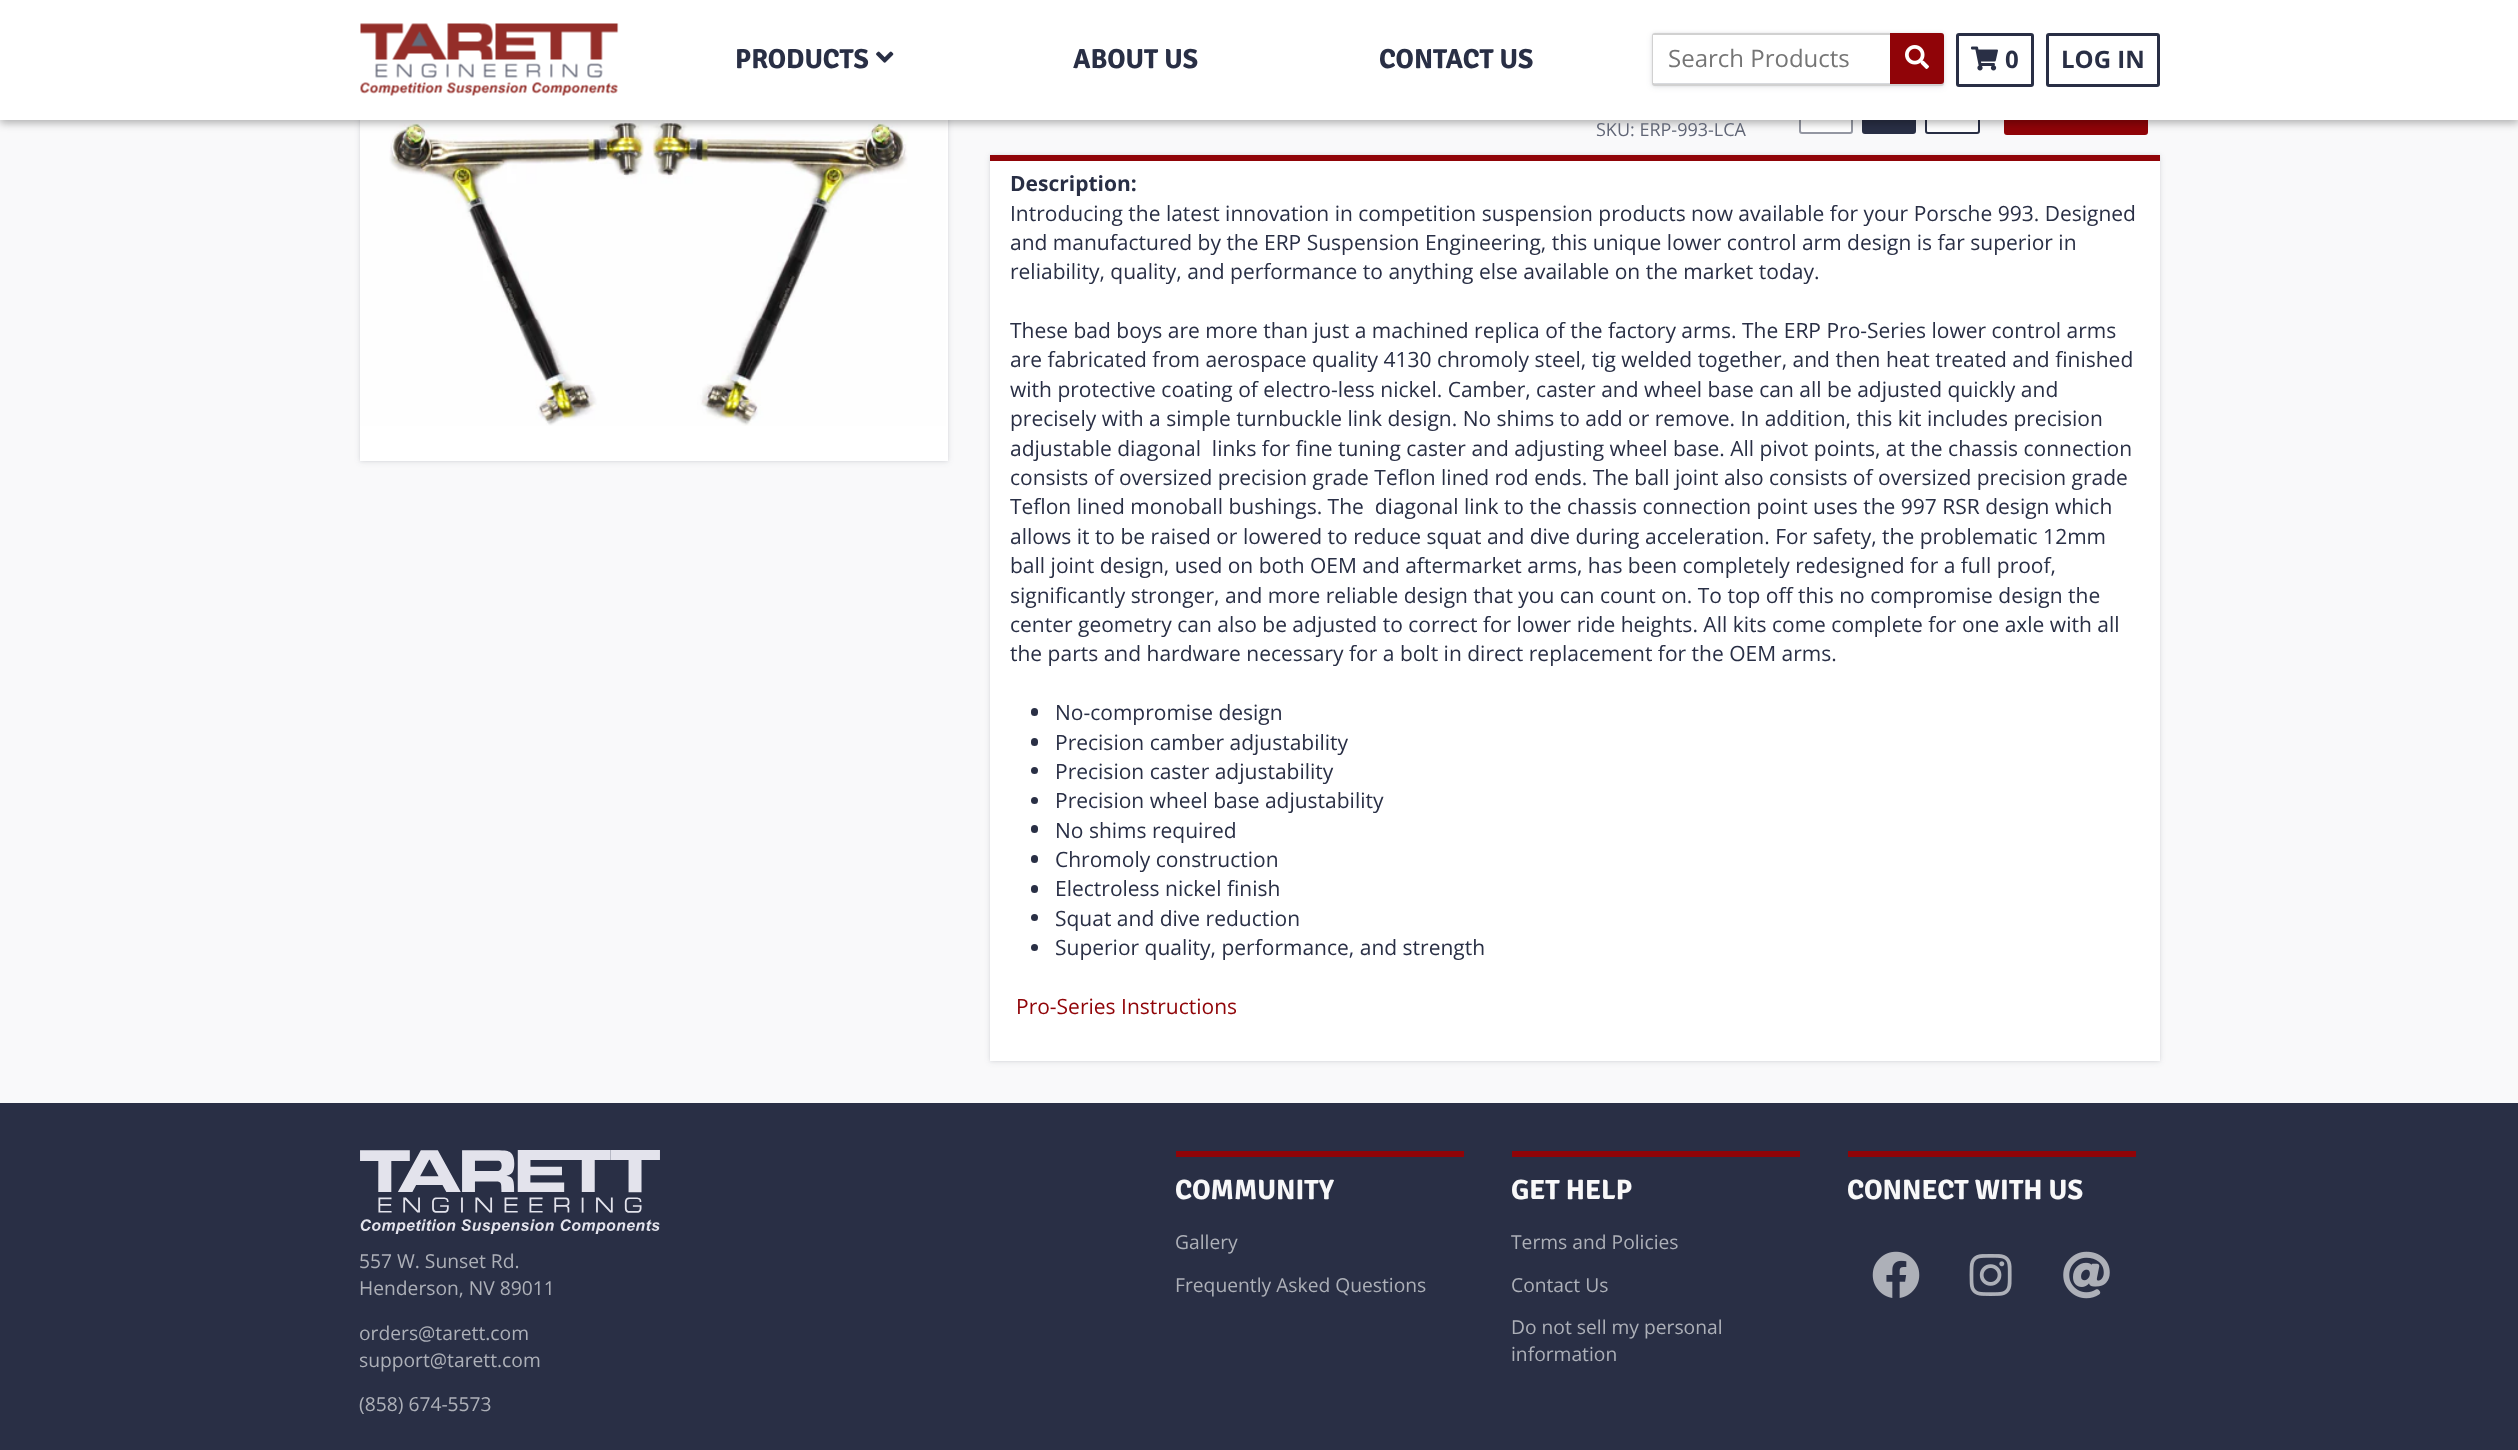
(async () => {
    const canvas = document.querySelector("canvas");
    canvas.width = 2518;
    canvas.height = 1450;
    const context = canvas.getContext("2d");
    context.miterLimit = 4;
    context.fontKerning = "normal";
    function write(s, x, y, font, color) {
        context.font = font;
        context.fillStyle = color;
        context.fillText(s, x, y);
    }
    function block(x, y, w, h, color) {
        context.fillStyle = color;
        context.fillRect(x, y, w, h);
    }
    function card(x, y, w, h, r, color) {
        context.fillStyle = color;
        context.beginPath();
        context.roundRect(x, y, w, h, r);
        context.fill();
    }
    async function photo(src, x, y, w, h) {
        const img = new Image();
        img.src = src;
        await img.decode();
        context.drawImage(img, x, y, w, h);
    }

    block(0, 0, 2518, 1450, "rgb(249, 249, 250)");
    context.fillStyle = "rgba(41, 47, 69, 0.1)";
    context.filter = "blur(3px)";
    context.beginPath();
    context.rect(360, 68, 588, 394);
    context.fill();
    context.filter = "none";
    context.filter = "blur(1.5px)";
    context.beginPath();
    context.rect(360, 66, 588, 395);
    context.fill();
    context.filter = "none";
    block(360, 120, 588, 341, "rgb(255, 255, 255)");
    await photo("media/5.png", 360, 120, 586, 306);
    card(1799, 89, 54, 45, 3, "rgb(255, 255, 255)");
    context.beginPath();
    context.roundRect(1800, 90, 52, 43, 2);
    context.strokeStyle = "rgba(41, 47, 69, 0.5)";
    context.lineWidth = 2;
    context.stroke();
    context.fillStyle = "rgb(41, 47, 69)";
    context.beginPath();
    context.roundRect(1863, 90, 52, 43, 2);
    context.fill();
    context.strokeStyle = "rgb(41, 47, 69)";
    context.stroke();
    context.fillStyle = "rgb(255, 255, 255)";
    context.beginPath();
    context.roundRect(1926, 90, 53, 43, 2);
    context.fill();
    context.stroke();
    context.fillStyle = "rgb(144, 4, 8)";
    context.beginPath();
    context.roundRect(2005.5, 88.5, 141, 45, 1.5);
    context.fill();
    context.strokeStyle = "rgb(144, 4, 8)";
    context.lineWidth = 3;
    context.stroke();
    context.fillStyle = "rgba(0, 0, 0, 0.3)";
    context.filter = "blur(4.5px)";
    context.beginPath();
    context.rect(0, 3, 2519, 120);
    context.fill();
    context.filter = "none";
    block(0, 0, 2518, 120, "rgb(255, 255, 255)");
    await photo("media/1.png", 360, 23, 259, 73);
    write("PRODUCTS", 735, 68, "bold 27.5px Signika", "rgb(41, 47, 69)");
    await photo("media/2.png", 876, 51, 18, 12);
    write("ABOUT US", 1073, 68, "bold 27.5px Signika", "rgb(41, 47, 69)");
    write("CONTACT US", 1379, 68, "bold 27.5px Signika", "rgb(41, 47, 69)");
    context.fillStyle = "rgba(41, 47, 69, 0.1)";
    context.filter = "blur(3px)";
    context.beginPath();
    context.roundRect(1652, 35, 292, 52, 3);
    context.fill();
    context.filter = "none";
    context.filter = "blur(1.5px)";
    context.beginPath();
    context.roundRect(1652, 33, 292, 53, 3);
    context.fill();
    context.filter = "none";
    context.beginPath();
    context.roundRect(1653, 34, 290, 51, 2);
    context.strokeStyle = "rgb(209, 209, 209)";
    context.lineWidth = 2;
    context.stroke();
    block(1653, 35, 237, 48, "rgb(255, 255, 255)");
    write("Search Products", 1668, 67, "24px Open Sans", "rgb(117, 117, 117)");
    context.fillStyle = "rgb(144, 4, 8)";
    context.beginPath();
    context.roundRect(1891.5, 34.5, 51, 48, [0, 1.5, 1.5, 0]);
    context.fill();
    context.strokeStyle = "rgb(144, 4, 8)";
    context.lineWidth = 3;
    context.stroke();
    await photo("media/3.png", 1905, 45, 24, 24);
    context.beginPath();
    context.roundRect(1957.5, 34.5, 75, 51, 1.5);
    context.strokeStyle = "rgb(41, 47, 69)";
    context.stroke();
    await photo("media/4.png", 1971, 46, 27, 25);
    write("0", 2005, 68, "bold 24px Open Sans", "rgb(41, 47, 69)");
    context.beginPath();
    context.roundRect(2047.5, 34.5, 111, 51, 1.5);
    context.stroke();
    write("LOG IN", 2061, 68, "bold 24px Open Sans", "rgb(41, 47, 69)");
    write("SKU: ERP-993-LCA", 1596, 136, "18px Open Sans", "rgb(97, 102, 118)");
    context.fillStyle = "rgba(41, 47, 69, 0.1)";
    context.filter = "blur(3px)";
    context.beginPath();
    context.rect(990, 156, 1170, 906);
    context.fill();
    context.filter = "none";
    context.filter = "blur(1.5px)";
    context.beginPath();
    context.rect(990, 155, 1170, 906);
    context.fill();
    context.filter = "none";
    block(990, 161, 1170, 900, "rgb(255, 255, 255)");
    block(990, 155, 1170, 6, "rgb(144, 4, 8)");
    write("Description:", 1010, 191, "bold 21px Open Sans", "rgb(41, 47, 69)");
    write("Introducing the latest innovation in competition suspension products now available for your Porsche 993. Designed", 1010, 221, "21px Open Sans", "rgb(41, 47, 69)");
    write("and manufactured by the ERP Suspension Engineering, this unique lower control arm design is far superior in", 1010, 250, "21px Open Sans", "rgb(41, 47, 69)");
    write("reliability, quality, and performance to anything else available on the market today.", 1010, 279, "21px Open Sans", "rgb(41, 47, 69)");
    write("These bad boys are more than just a machined replica of the factory arms. The ERP Pro-Series lower control arms", 1010, 338, "21px Open Sans", "rgb(41, 47, 69)");
    write("are fabricated from aerospace quality 4130 chromoly steel, tig welded together, and then heat treated and finished", 1010, 367, "21px Open Sans", "rgb(41, 47, 69)");
    write("with protective coating of electro-less nickel. Camber, caster and wheel base can all be adjusted quickly and", 1010, 397, "21px Open Sans", "rgb(41, 47, 69)");
    write("precisely with a simple turnbuckle link design. No shims to add or remove. In addition, this kit includes precision", 1010, 426, "21px Open Sans", "rgb(41, 47, 69)");
    write("adjustable diagonal  links for fine tuning caster and adjusting wheel base. All pivot points, at the chassis connection", 1010, 456, "21px Open Sans", "rgb(41, 47, 69)");
    write("consists of oversized precision grade Teflon lined rod ends. The ball joint also consists of oversized precision grade", 1010, 485, "21px Open Sans", "rgb(41, 47, 69)");
    write("Teflon lined monoball bushings. The  diagonal link to the chassis connection point uses the 997 RSR design which", 1010, 514, "21px Open Sans", "rgb(41, 47, 69)");
    write("allows it to be raised or lowered to reduce squat and dive during acceleration. For safety, the problematic 12mm", 1010, 544, "21px Open Sans", "rgb(41, 47, 69)");
    write("ball joint design, used on both OEM and aftermarket arms, has been completely redesigned for a full proof,", 1010, 573, "21px Open Sans", "rgb(41, 47, 69)");
    write("significantly stronger, and more reliable design that you can count on. To top off this no compromise design the", 1010, 603, "21px Open Sans", "rgb(41, 47, 69)");
    write("center geometry can also be adjusted to correct for lower ride heights. All kits come complete for one axle with all", 1010, 632, "21px Open Sans", "rgb(41, 47, 69)");
    write("the parts and hardware necessary for a bolt in direct replacement for the OEM arms.", 1010, 661, "21px Open Sans", "rgb(41, 47, 69)");
    card(1031, 708, 7, 8, 3.5, "rgb(41, 47, 69)");
    write("No-compromise design", 1055, 720, "21px Open Sans", "rgb(41, 47, 69)");
    card(1031, 738, 7, 8, 3.5, "rgb(41, 47, 69)");
    write("Precision camber adjustability", 1055, 750, "21px Open Sans", "rgb(41, 47, 69)");
    context.beginPath();
    context.arc(1034.5, 770.5, 3.5, 0, Math.PI * 2);
    context.fill();
    write("Precision caster adjustability", 1055, 779, "21px Open Sans", "rgb(41, 47, 69)");
    context.beginPath();
    context.arc(1034.5, 800.5, 3.5, 0, Math.PI * 2);
    context.fill();
    write("Precision wheel base adjustability", 1055, 808, "21px Open Sans", "rgb(41, 47, 69)");
    card(1031, 825, 7, 8, 3.5, "rgb(41, 47, 69)");
    write("No shims required", 1055, 838, "21px Open Sans", "rgb(41, 47, 69)");
    card(1031, 855, 7, 8, 3.5, "rgb(41, 47, 69)");
    write("Chromoly construction", 1055, 867, "21px Open Sans", "rgb(41, 47, 69)");
    card(1031, 885, 7, 8, 3.5, "rgb(41, 47, 69)");
    write("Electroless nickel finish", 1055, 896, "21px Open Sans", "rgb(41, 47, 69)");
    context.beginPath();
    context.arc(1034.5, 917.5, 3.5, 0, Math.PI * 2);
    context.fill();
    write("Squat and dive reduction", 1055, 926, "21px Open Sans", "rgb(41, 47, 69)");
    context.beginPath();
    context.arc(1034.5, 947.5, 3.5, 0, Math.PI * 2);
    context.fill();
    write("Superior quality, performance, and strength", 1055, 955, "21px Open Sans", "rgb(41, 47, 69)");
    write("Pro-Series Instructions", 1016, 1014, "21px Open Sans", "rgb(144, 4, 8)");
    block(0, 1103, 2518, 347, "rgb(41, 47, 69)");
    await photo("media/6.png", 360, 1150, 300, 84);
    write("557 W. Sunset Rd.", 359, 1268, "19.25px Open Sans", "rgb(173, 176, 184)");
    write("Henderson, NV 89011", 359, 1295, "19.25px Open Sans", "rgb(173, 176, 184)");
    write("orders@tarett.com", 359, 1340, "19.25px Open Sans", "rgb(173, 176, 184)");
    write("support@tarett.com", 359, 1367, "19.25px Open Sans", "rgb(173, 176, 184)");
    write("(858) 674-5573", 359, 1411, "19.25px Open Sans", "rgb(173, 176, 184)");
    block(1176, 1151, 288, 6, "rgb(144, 4, 8)");
    write("COMMUNITY", 1175, 1199, "bold 28px Signika", "rgb(248, 248, 249)");
    write("Gallery", 1175, 1249, "19.25px Open Sans", "rgb(173, 176, 184)");
    write("Frequently Asked Questions", 1175, 1292, "19.25px Open Sans", "rgb(173, 176, 184)");
    block(1512, 1151, 288, 6, "rgb(144, 4, 8)");
    write("GET HELP", 1511, 1199, "bold 28px Signika", "rgb(248, 248, 249)");
    write("Terms and Policies", 1511, 1249, "19.25px Open Sans", "rgb(173, 176, 184)");
    write("Contact Us", 1511, 1292, "19.25px Open Sans", "rgb(173, 176, 184)");
    write("Do not sell my personal", 1511, 1334, "19.25px Open Sans", "rgb(173, 176, 184)");
    write("information", 1511, 1361, "19.25px Open Sans", "rgb(173, 176, 184)");
    block(1848, 1151, 288, 6, "rgb(144, 4, 8)");
    write("CONNECT WITH US", 1847, 1199, "bold 28px Signika", "rgb(248, 248, 249)");
    await photo("media/7.png", 1872, 1251, 48, 47);
    await photo("media/8.png", 1969, 1254, 43, 42);
    await photo("media/9.png", 2063, 1251, 47, 48);
})();
